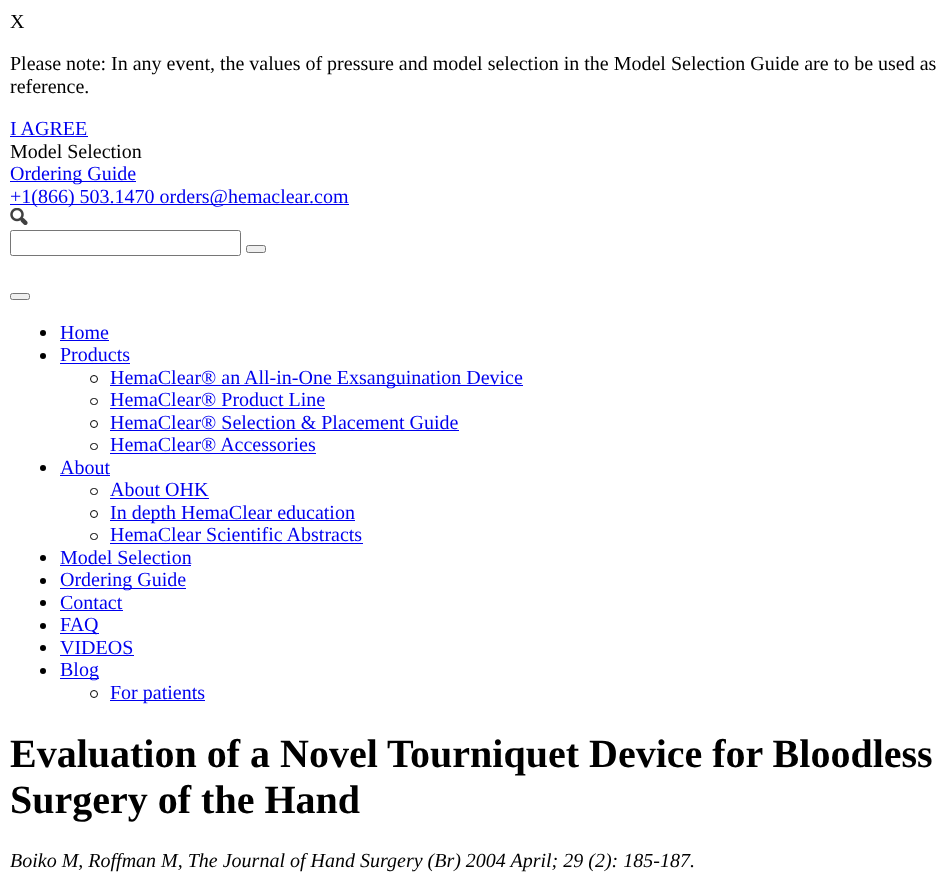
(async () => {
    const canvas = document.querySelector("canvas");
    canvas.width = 948;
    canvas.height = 892;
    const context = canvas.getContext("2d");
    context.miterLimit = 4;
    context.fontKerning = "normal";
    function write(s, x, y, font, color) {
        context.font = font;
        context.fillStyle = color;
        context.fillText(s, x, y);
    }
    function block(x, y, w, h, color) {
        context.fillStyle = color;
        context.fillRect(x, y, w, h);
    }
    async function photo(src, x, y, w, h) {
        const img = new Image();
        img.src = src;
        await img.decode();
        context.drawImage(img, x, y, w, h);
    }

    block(0, 0, 948, 892, "rgb(255, 255, 255)");
    write("X", 10, 28, "20px Liberation Serif", "rgb(0, 0, 0)");
    write("Please note: In any event, the values of pressure and model selection in the Model Selection Guide are to be used as", 10, 70, "20px Liberation Serif", "rgb(0, 0, 0)");
    write("reference.", 10, 93, "20px Liberation Serif", "rgb(0, 0, 0)");
    write("I AGREE", 10, 135, "20px Liberation Serif", "rgb(0, 0, 238)");
    block(10, 136, 78, 1, "rgb(0, 0, 238)");
    write("Model Selection", 10, 158, "20px Liberation Serif", "rgb(0, 0, 0)");
    block(10, 181, 126, 1, "rgb(0, 0, 238)");
    write("Ordering Guide", 10, 180, "20px Liberation Serif", "rgb(0, 0, 238)");
    block(10, 204, 339, 1, "rgb(0, 0, 238)");
    write("+1(866) 503.1470 orders@hemaclear.com", 10, 203, "20px Liberation Serif", "rgb(0, 0, 238)");
    await photo("media/1.png", 10, 208, 18, 17);
    context.beginPath();
    context.roundRect(10.5, 230.5, 230, 25, 2);
    context.strokeStyle = "rgb(118, 118, 118)";
    context.stroke();
    context.fillStyle = "rgb(239, 239, 239)";
    context.beginPath();
    context.roundRect(246.5, 245.5, 19, 7, 2);
    context.fill();
    context.stroke();
    context.beginPath();
    context.roundRect(10.5, 293.5, 19, 6, 2);
    context.fill();
    context.stroke();
    context.fillStyle = "rgb(0, 0, 0)";
    context.beginPath();
    context.arc(43, 333, 3, 0, Math.PI * 2);
    context.fill();
    write("Home", 60, 339, "20px Liberation Serif", "rgb(0, 0, 238)");
    block(60, 340, 49, 1, "rgb(0, 0, 238)");
    context.fillStyle = "rgb(0, 0, 0)";
    context.beginPath();
    context.arc(43, 356, 3, 0, Math.PI * 2);
    context.fill();
    write("Products", 60, 361, "20px Liberation Serif", "rgb(0, 0, 238)");
    block(60, 363, 70, 1, "rgb(0, 0, 238)");
    context.beginPath();
    context.arc(94, 379, 3.5, 0, Math.PI * 2);
    context.strokeStyle = "rgb(0, 0, 0)";
    context.stroke();
    block(110, 385, 413, 1, "rgb(0, 0, 238)");
    write("HemaClear® an All-in-One Exsanguination Device", 110, 384, "20px Liberation Serif", "rgb(0, 0, 238)");
    context.beginPath();
    context.roundRect(90.5, 398.5, 7, 6, 3);
    context.stroke();
    write("HemaClear® Product Line", 110, 406, "20px Liberation Serif", "rgb(0, 0, 238)");
    block(110, 408, 215, 1, "rgb(0, 0, 238)");
    context.beginPath();
    context.arc(94, 424, 3.5, 0, Math.PI * 2);
    context.stroke();
    write("HemaClear® Selection & Placement Guide", 110, 429, "20px Liberation Serif", "rgb(0, 0, 238)");
    block(110, 430, 349, 1, "rgb(0, 0, 238)");
    context.beginPath();
    context.roundRect(90.5, 443.5, 7, 6, 3);
    context.stroke();
    write("HemaClear® Accessories", 110, 451, "20px Liberation Serif", "rgb(0, 0, 238)");
    block(110, 453, 206, 1, "rgb(0, 0, 238)");
    context.fillStyle = "rgb(0, 0, 0)";
    context.beginPath();
    context.arc(43, 468, 3, 0, Math.PI * 2);
    context.fill();
    write("About", 60, 474, "20px Liberation Serif", "rgb(0, 0, 238)");
    block(60, 475, 50, 1, "rgb(0, 0, 238)");
    context.beginPath();
    context.roundRect(90.5, 488.5, 7, 6, 3);
    context.stroke();
    write("About OHK", 110, 496, "20px Liberation Serif", "rgb(0, 0, 238)");
    block(110, 498, 99, 1, "rgb(0, 0, 238)");
    context.beginPath();
    context.arc(94, 514, 3.5, 0, Math.PI * 2);
    context.stroke();
    block(110, 520, 245, 1, "rgb(0, 0, 238)");
    write("In depth HemaClear education", 110, 519, "20px Liberation Serif", "rgb(0, 0, 238)");
    context.beginPath();
    context.roundRect(90.5, 533.5, 7, 6, 3);
    context.stroke();
    write("HemaClear Scientific Abstracts", 110, 541, "20px Liberation Serif", "rgb(0, 0, 238)");
    block(110, 543, 253, 1, "rgb(0, 0, 238)");
    context.fillStyle = "rgb(0, 0, 0)";
    context.beginPath();
    context.arc(43, 558, 3, 0, Math.PI * 2);
    context.fill();
    write("Model Selection", 60, 564, "20px Liberation Serif", "rgb(0, 0, 238)");
    block(60, 565, 131, 1, "rgb(0, 0, 238)");
    context.fillStyle = "rgb(0, 0, 0)";
    context.beginPath();
    context.arc(43, 581, 3, 0, Math.PI * 2);
    context.fill();
    block(60, 588, 126, 1, "rgb(0, 0, 238)");
    write("Ordering Guide", 60, 586, "20px Liberation Serif", "rgb(0, 0, 238)");
    context.fillStyle = "rgb(0, 0, 0)";
    context.beginPath();
    context.arc(43, 603, 3, 0, Math.PI * 2);
    context.fill();
    write("Contact", 60, 609, "20px Liberation Serif", "rgb(0, 0, 238)");
    block(60, 610, 63, 1, "rgb(0, 0, 238)");
    context.fillStyle = "rgb(0, 0, 0)";
    context.beginPath();
    context.arc(43, 626, 3, 0, Math.PI * 2);
    context.fill();
    block(60, 633, 39, 1, "rgb(0, 0, 238)");
    write("FAQ", 60, 631, "20px Liberation Serif", "rgb(0, 0, 238)");
    context.fillStyle = "rgb(0, 0, 0)";
    context.beginPath();
    context.arc(43, 648, 3, 0, Math.PI * 2);
    context.fill();
    write("VIDEOS", 60, 654, "20px Liberation Serif", "rgb(0, 0, 238)");
    block(60, 655, 74, 1, "rgb(0, 0, 238)");
    context.fillStyle = "rgb(0, 0, 0)";
    context.beginPath();
    context.arc(43, 671, 3, 0, Math.PI * 2);
    context.fill();
    block(60, 678, 39, 1, "rgb(0, 0, 238)");
    write("Blog", 60, 676, "20px Liberation Serif", "rgb(0, 0, 238)");
    context.beginPath();
    context.arc(94, 694, 3.5, 0, Math.PI * 2);
    context.stroke();
    block(110, 700, 95, 1, "rgb(0, 0, 238)");
    write("For patients", 110, 699, "20px Liberation Serif", "rgb(0, 0, 238)");
    write("Evaluation of a Novel Tourniquet Device for Bloodless", 10, 767, "bold 40px Liberation Serif", "rgb(0, 0, 0)");
    write("Surgery of the Hand", 10, 813, "bold 40px Liberation Serif", "rgb(0, 0, 0)");
    write("Boiko M, Roffman M, The Journal of Hand Surgery (Br) 2004 April; 29 (2): 185-187.", 10, 867, "italic 20px Liberation Serif", "rgb(0, 0, 0)");
})();
